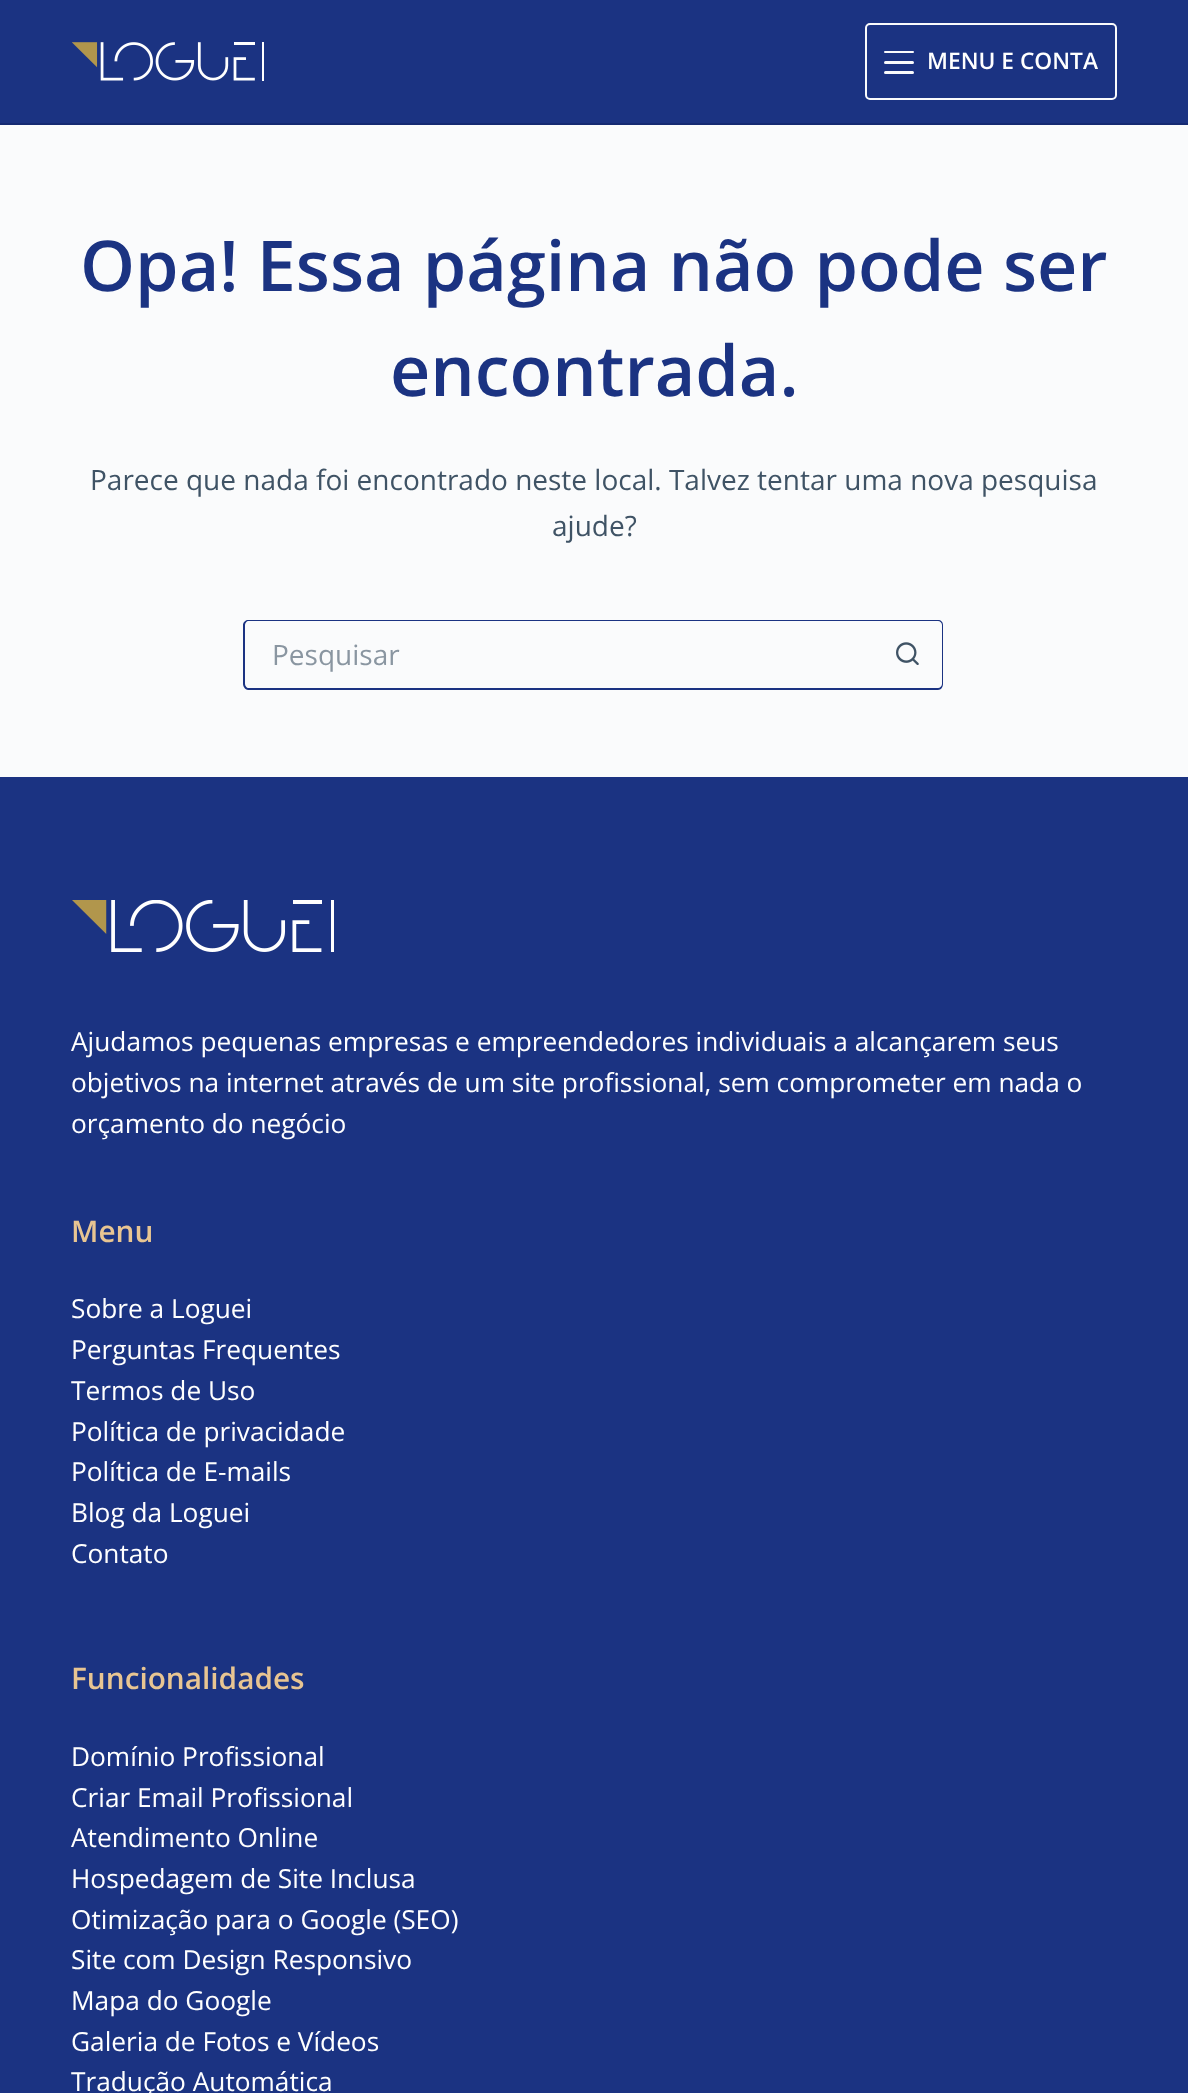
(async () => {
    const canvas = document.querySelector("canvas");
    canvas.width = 1188;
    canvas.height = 2093;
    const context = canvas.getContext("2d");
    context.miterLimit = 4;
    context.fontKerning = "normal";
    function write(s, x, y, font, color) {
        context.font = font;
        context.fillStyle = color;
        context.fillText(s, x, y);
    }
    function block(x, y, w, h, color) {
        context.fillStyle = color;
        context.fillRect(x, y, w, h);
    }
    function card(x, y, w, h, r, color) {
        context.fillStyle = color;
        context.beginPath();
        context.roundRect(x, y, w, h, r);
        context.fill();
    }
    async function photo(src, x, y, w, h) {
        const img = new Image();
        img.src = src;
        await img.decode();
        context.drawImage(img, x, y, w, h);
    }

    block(0, 0, 1188, 2093, "rgb(250, 251, 252)");
    block(0, 0, 1188, 123, "rgb(27, 51, 130)");
    block(0, 123, 1188, 2, "rgb(21, 42, 114)");
    await photo("media/1.png", 72, 42, 192, 39);
    context.beginPath();
    context.roundRect(866, 24, 250, 75, 4);
    context.strokeStyle = "rgb(250, 251, 252)";
    context.lineWidth = 2;
    context.stroke();
    card(884, 51, 30, 2, 1, "rgb(250, 251, 252)");
    card(884, 61, 30, 3, 1.5, "rgb(250, 251, 252)");
    card(884, 71, 30, 3, 1.5, "rgb(250, 251, 252)");
    write("MENU E CONTA", 927, 69, "600 22.75px Open Sans", "rgb(255, 255, 255)");
    write("Opa! Essa página não pode ser", 80, 291, "600 70px Open Sans", "rgb(27, 51, 130)");
    write("encontrada.", 390, 396, "600 70px Open Sans", "rgb(27, 51, 130)");
    write("Parece que nada foi encontrado neste local. Talvez tentar uma nova pesquisa", 90, 490, "28px Open Sans", "rgb(63, 83, 101)");
    write("ajude?", 552, 536, "28px Open Sans", "rgb(63, 83, 101)");
    context.fillStyle = "rgb(27, 51, 130)";
    context.beginPath();
    context.moveTo(248, 620);
    context.lineTo(873, 620);
    context.lineTo(873, 690);
    context.lineTo(248, 690);
    context.bezierCurveTo(246, 690, 243, 687, 243, 684);
    context.lineTo(243, 625);
    context.bezierCurveTo(243, 622, 246, 620, 248, 620);
    context.closePath();
    context.moveTo(248, 621);
    context.lineTo(873, 621);
    context.lineTo(873, 688);
    context.lineTo(248, 688);
    context.bezierCurveTo(247, 688, 245, 686, 245, 684);
    context.lineTo(245, 625);
    context.bezierCurveTo(245, 623, 247, 621, 248, 621);
    context.closePath();
    context.fill("evenodd");
    write("Pesquisar", 272, 665, "28px Open Sans", "rgb(138, 150, 161)");
    context.fillStyle = "rgb(27, 51, 130)";
    context.beginPath();
    context.moveTo(873, 620);
    context.lineTo(938, 620);
    context.bezierCurveTo(941, 620, 943, 622, 943, 625);
    context.lineTo(943, 684);
    context.bezierCurveTo(943, 687, 941, 690, 938, 690);
    context.lineTo(873, 690);
    context.closePath();
    context.moveTo(873, 621);
    context.lineTo(938, 621);
    context.bezierCurveTo(940, 621, 942, 623, 942, 625);
    context.lineTo(942, 684);
    context.bezierCurveTo(942, 686, 940, 688, 938, 688);
    context.lineTo(873, 688);
    context.closePath();
    context.fill("evenodd");
    await photo("media/2.png", 896, 642, 23, 23);
    block(0, 777, 1188, 1316, "rgb(27, 51, 130)");
    await photo("media/3.png", 72, 900, 262, 52);
    write("Ajudamos pequenas empresas e empreendedores individuais a alcançarem seus", 71, 1051, "26.25px Open Sans", "rgb(255, 255, 255)");
    write("objetivos na internet através de um site profissional, sem comprometer em nada o", 71, 1092, "26.25px Open Sans", "rgb(255, 255, 255)");
    write("orçamento do negócio", 71, 1133, "26.25px Open Sans", "rgb(255, 255, 255)");
    write("Menu", 71, 1242, "600 29.75px Open Sans", "rgb(232, 197, 146)");
    write("Sobre a Loguei", 71, 1318, "26.25px Open Sans", "rgb(255, 255, 255)");
    write("Perguntas Frequentes", 71, 1359, "26.25px Open Sans", "rgb(255, 255, 255)");
    write("Termos de Uso", 71, 1400, "26.25px Open Sans", "rgb(255, 255, 255)");
    write("Política de privacidade", 71, 1441, "26.25px Open Sans", "rgb(255, 255, 255)");
    write("Política de E-mails", 71, 1481, "26.25px Open Sans", "rgb(255, 255, 255)");
    write("Blog da Loguei", 71, 1522, "26.25px Open Sans", "rgb(255, 255, 255)");
    write("Contato", 71, 1563, "26.25px Open Sans", "rgb(255, 255, 255)");
    write("Funcionalidades", 71, 1689, "600 29.75px Open Sans", "rgb(232, 197, 146)");
    write("Domínio Profissional", 71, 1766, "26.25px Open Sans", "rgb(255, 255, 255)");
    write("Criar Email Profissional", 71, 1807, "26.25px Open Sans", "rgb(255, 255, 255)");
    write("Atendimento Online", 71, 1847, "26.25px Open Sans", "rgb(255, 255, 255)");
    write("Hospedagem de Site Inclusa", 71, 1888, "26.25px Open Sans", "rgb(255, 255, 255)");
    write("Otimização para o Google (SEO)", 71, 1929, "26.25px Open Sans", "rgb(255, 255, 255)");
    write("Site com Design Responsivo", 71, 1969, "26.25px Open Sans", "rgb(255, 255, 255)");
    write("Mapa do Google", 71, 2010, "26.25px Open Sans", "rgb(255, 255, 255)");
    write("Galeria de Fotos e Vídeos", 71, 2051, "26.25px Open Sans", "rgb(255, 255, 255)");
    write("Tradução Automática", 71, 2091, "26.25px Open Sans", "rgb(255, 255, 255)");
})();
